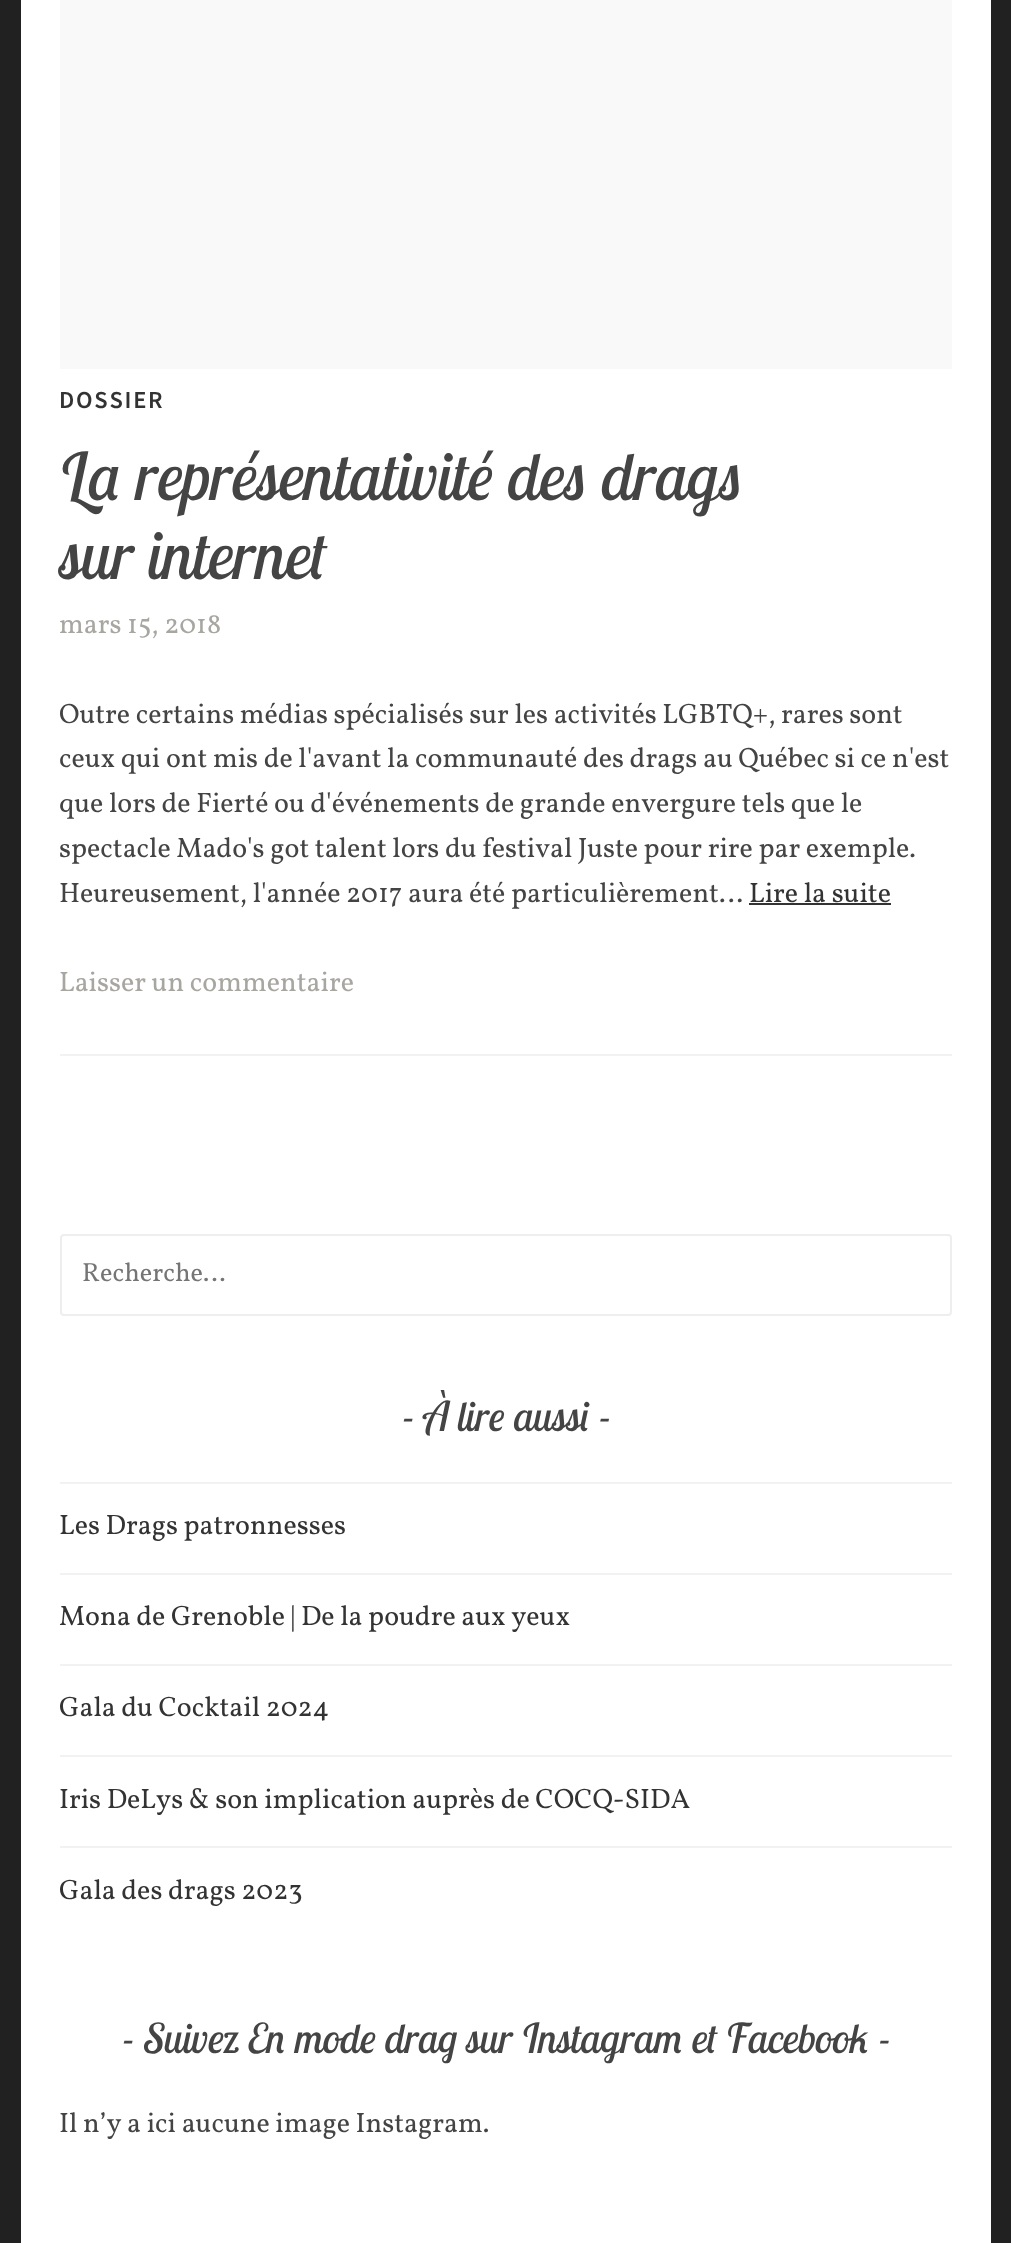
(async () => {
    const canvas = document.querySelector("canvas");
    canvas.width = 1011;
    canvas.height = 2243;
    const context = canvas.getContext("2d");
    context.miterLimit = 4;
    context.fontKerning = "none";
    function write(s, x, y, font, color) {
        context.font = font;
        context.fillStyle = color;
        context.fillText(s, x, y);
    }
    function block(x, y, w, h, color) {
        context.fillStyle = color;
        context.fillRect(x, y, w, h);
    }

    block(0, 0, 1011, 2243, "rgb(33, 33, 33)");
    block(21, 0, 970, 2243, "rgb(255, 255, 255)");
    block(60, 0, 892, 369, "rgb(248, 249, 248)");
    context.letterSpacing = "1.75px";
    write("DOSSIER", 59, 408, "600 24.5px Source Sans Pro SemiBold", "rgb(51, 51, 51)");
    context.letterSpacing = "0px";
    write("La représentativité des drags", 59, 500, "italic 66px Lobster Two", "rgb(68, 68, 68)");
    write("sur internet", 59, 579, "italic 66px Lobster Two", "rgb(68, 68, 68)");
    write("mars 15, 2018", 59, 633, "28px Vollkorn", "rgb(168, 166, 161)");
    write("Outre certains médias spécialisés sur les activités LGBTQ+, rares sont", 59, 723, "28px Vollkorn", "rgb(68, 68, 68)");
    write("ceux qui ont mis de l'avant la communauté des drags au Québec si ce n'est", 59, 767, "28px Vollkorn", "rgb(68, 68, 68)");
    write("que lors de Fierté ou d'événements de grande envergure tels que le", 59, 812, "28px Vollkorn", "rgb(68, 68, 68)");
    write("spectacle Mado's got talent lors du festival Juste pour rire par exemple.", 59, 857, "28px Vollkorn", "rgb(68, 68, 68)");
    write("Heureusement, l'année 2017 aura été particulièrement…", 59, 902, "28px Vollkorn", "rgb(68, 68, 68)");
    write("Lire la suite", 749, 902, "28px Vollkorn", "rgb(51, 51, 51)");
    block(749, 903, 142, 2, "rgb(51, 51, 51)");
    write("Laisser un commentaire", 59, 991, "28px Vollkorn", "rgb(168, 166, 161)");
    block(60, 1054, 892, 2, "rgb(242, 242, 242)");
    context.beginPath();
    context.roundRect(61, 1235, 890, 80, 3);
    context.strokeStyle = "rgb(238, 238, 238)";
    context.lineWidth = 2;
    context.stroke();
    write("Recherche…", 82, 1281, "26.25px Vollkorn", "rgb(117, 117, 117)");
    write("- À lire aussi -", 402, 1431, "italic 41px Lobster Two", "rgb(68, 68, 68)");
    block(60, 1482, 892, 2, "rgb(242, 242, 242)");
    write("Les Drags patronnesses", 59, 1534, "28px Vollkorn", "rgb(51, 51, 51)");
    block(60, 1573, 892, 2, "rgb(242, 242, 242)");
    write("Mona de Grenoble | De la poudre aux yeux", 59, 1625, "28px Vollkorn", "rgb(51, 51, 51)");
    block(60, 1664, 892, 2, "rgb(242, 242, 242)");
    write("Gala du Cocktail 2024", 59, 1716, "28px Vollkorn", "rgb(51, 51, 51)");
    block(60, 1755, 892, 2, "rgb(242, 242, 242)");
    write("Iris DeLys & son implication auprès de COCQ-SIDA", 59, 1808, "28px Vollkorn", "rgb(51, 51, 51)");
    block(60, 1846, 892, 2, "rgb(242, 242, 242)");
    write("Gala des drags 2023", 59, 1899, "28px Vollkorn", "rgb(51, 51, 51)");
    write("- Suivez En mode drag sur Instagram et Facebook -", 122, 2053, "italic 41px Lobster Two", "rgb(68, 68, 68)");
    write("Il n’y a ici aucune image Instagram.", 59, 2132, "28px Vollkorn", "rgb(68, 68, 68)");
})();
